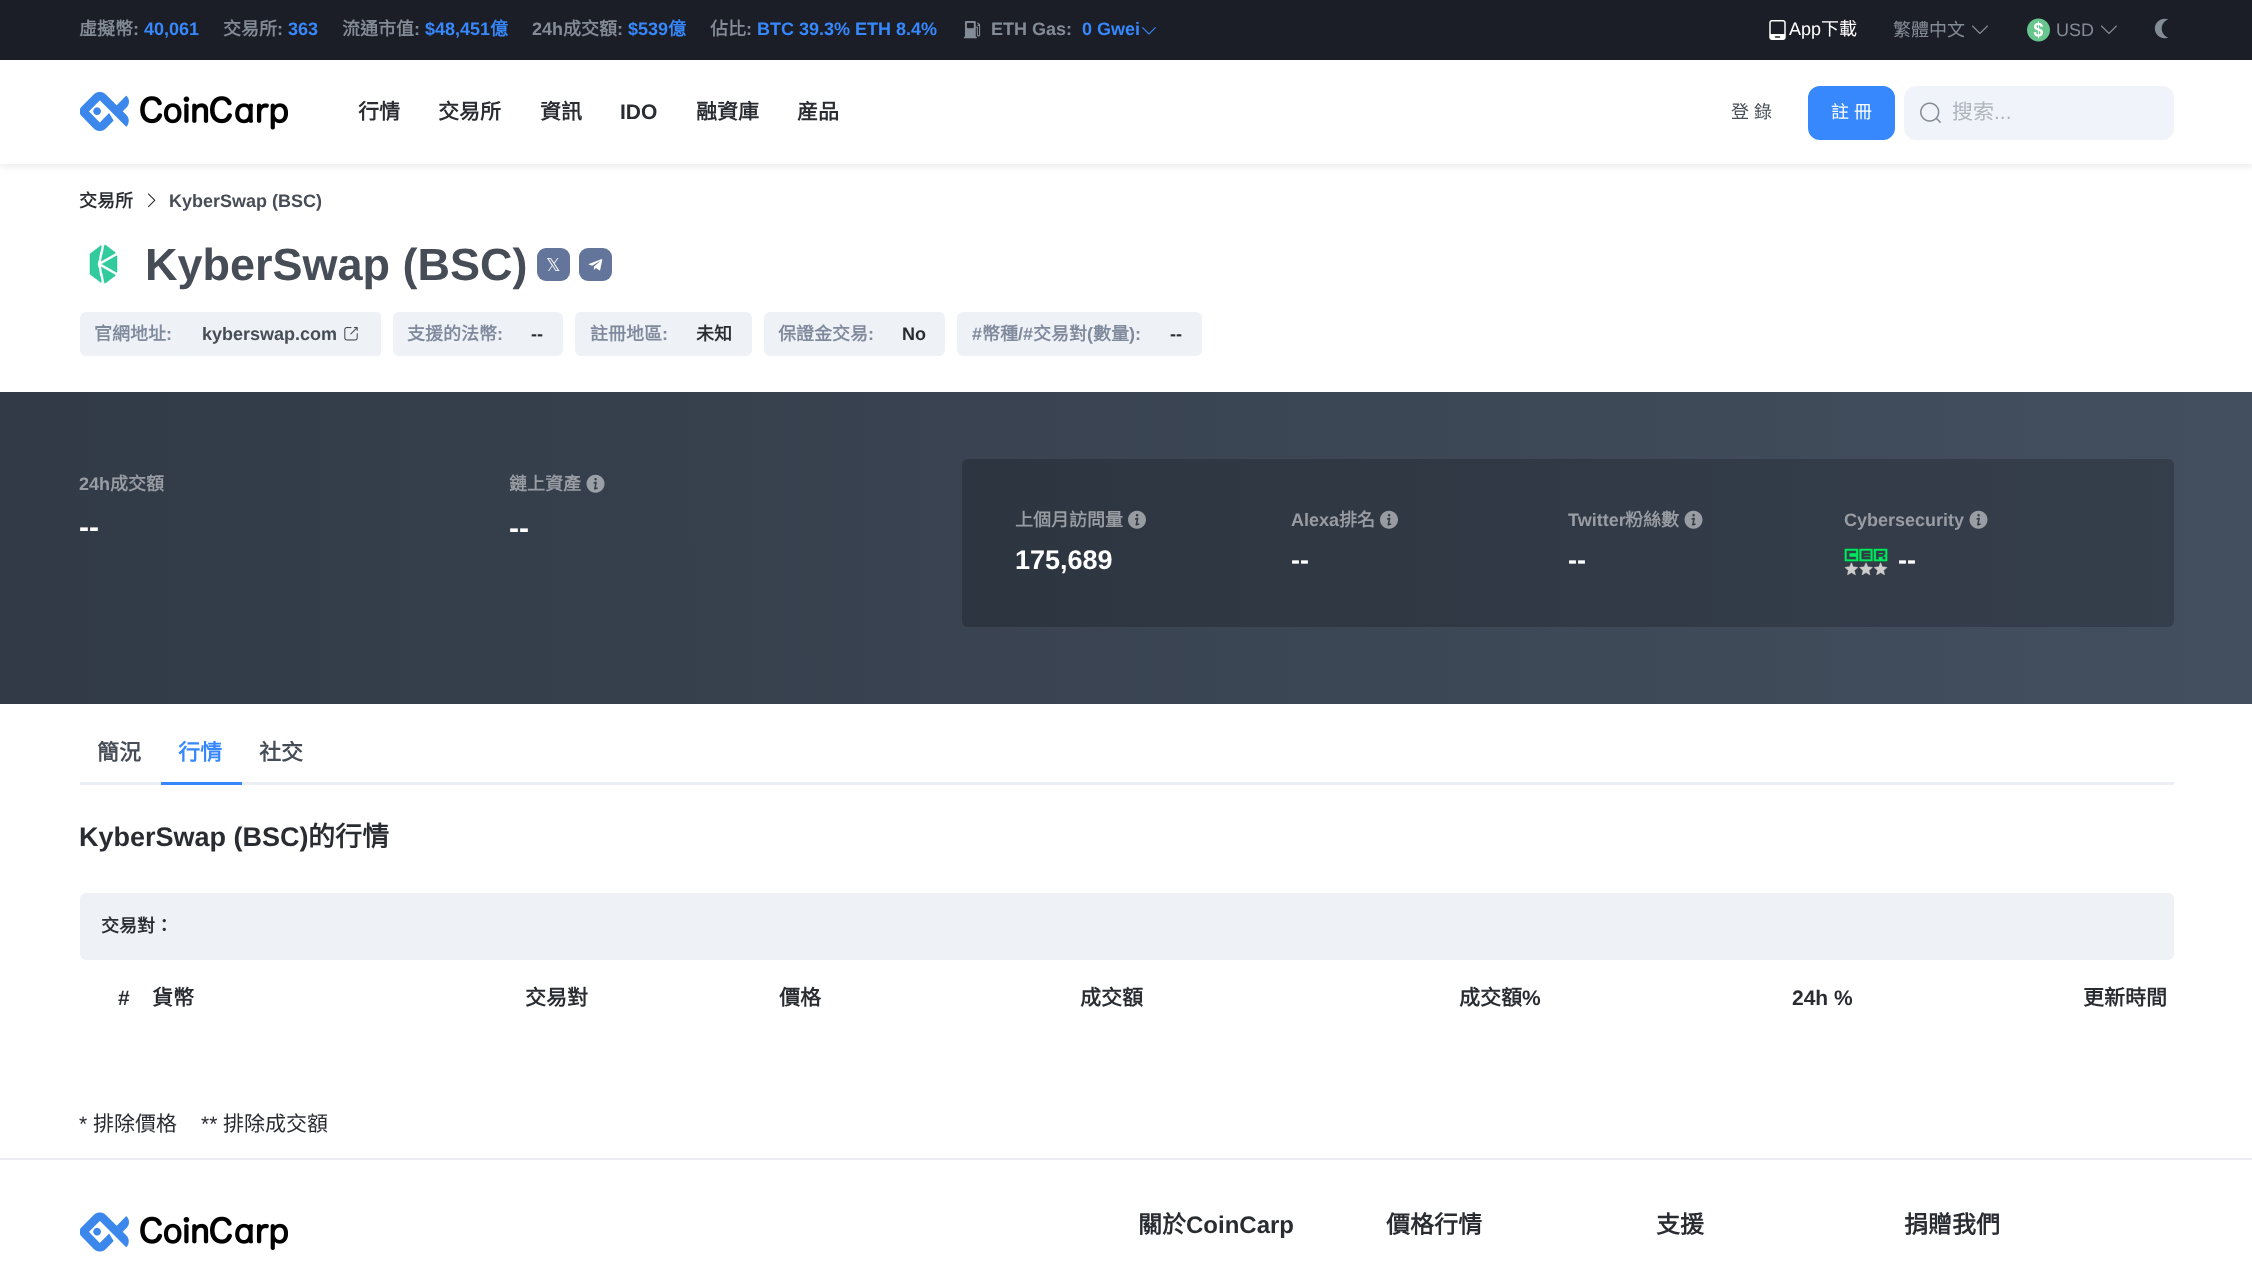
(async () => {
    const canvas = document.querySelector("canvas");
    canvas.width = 2252;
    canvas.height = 1270;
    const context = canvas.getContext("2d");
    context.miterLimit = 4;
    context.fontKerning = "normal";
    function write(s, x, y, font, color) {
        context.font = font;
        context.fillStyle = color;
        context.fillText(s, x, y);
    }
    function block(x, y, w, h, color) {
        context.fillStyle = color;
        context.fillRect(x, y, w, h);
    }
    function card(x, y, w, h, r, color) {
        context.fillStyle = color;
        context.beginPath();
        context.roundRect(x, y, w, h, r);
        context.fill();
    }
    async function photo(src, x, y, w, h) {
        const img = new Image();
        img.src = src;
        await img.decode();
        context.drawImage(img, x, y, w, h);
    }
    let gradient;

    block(0, 0, 2252, 1270, "rgb(255, 255, 255)");
    block(0, 0, 2252, 60, "rgb(28, 30, 39)");
    write("虛擬幣", 79, 35, "bold 18px Noto Sans CJK TC", "rgb(131, 140, 150)");
    write(":", 133, 35, "bold 18px Liberation Sans", "rgb(131, 140, 150)");
    write("40,061", 144, 35, "bold 18px Liberation Sans", "rgb(54, 136, 252)");
    write("交易所", 223, 35, "bold 18px Noto Sans CJK TC", "rgb(131, 140, 150)");
    write(":", 277, 35, "bold 18px Liberation Sans", "rgb(131, 140, 150)");
    write("363", 288, 35, "bold 18px Liberation Sans", "rgb(54, 136, 252)");
    write("流通市值", 342, 35, "bold 18px Noto Sans CJK TC", "rgb(131, 140, 150)");
    write(":", 414, 35, "bold 18px Liberation Sans", "rgb(131, 140, 150)");
    write("$48,451", 425, 35, "bold 18px Liberation Sans", "rgb(54, 136, 252)");
    write("億", 490, 35, "bold 18px Noto Sans CJK TC", "rgb(54, 136, 252)");
    write("24h", 532, 35, "bold 18px Liberation Sans", "rgb(131, 140, 150)");
    write("成交額", 563, 35, "bold 18px Noto Sans CJK TC", "rgb(131, 140, 150)");
    write(":", 617, 35, "bold 18px Liberation Sans", "rgb(131, 140, 150)");
    write("$539", 628, 35, "bold 18px Liberation Sans", "rgb(54, 136, 252)");
    write("億", 668, 35, "bold 18px Noto Sans CJK TC", "rgb(54, 136, 252)");
    write("佔比", 710, 35, "bold 18px Noto Sans CJK TC", "rgb(131, 140, 150)");
    write(":", 746, 35, "bold 18px Liberation Sans", "rgb(131, 140, 150)");
    write("BTC 39.3% ETH 8.4%", 757, 35, "bold 18px Liberation Sans", "rgb(54, 136, 252)");
    await photo("media/1.png", 963, 21, 18, 18);
    write("ETH Gas:", 991, 35, "bold 18px Liberation Sans", "rgb(131, 140, 150)");
    write("0 Gwei", 1082, 35, "bold 18px Liberation Sans", "rgb(54, 136, 252)");
    await photo("media/2.png", 1142, 27, 14, 8);
    await photo("media/3.png", 1769, 20, 17, 20);
    write("App", 1789, 35, "18px Liberation Sans", "rgb(255, 255, 255)");
    write("下載", 1821, 35, "18px Noto Sans CJK TC", "rgb(255, 255, 255)");
    write("繁體中文", 1893, 36, "18px Noto Sans CJK TC", "rgb(131, 140, 150)");
    await photo("media/4.png", 1972, 25, 16, 9);
    await photo("media/5.png", 2027, 18, 23, 24);
    write("USD", 2056, 36, "18px Liberation Sans", "rgb(131, 140, 150)");
    await photo("media/4.png", 2101, 25, 16, 9);
    await photo("media/6.png", 2154, 18, 14, 21);
    context.fillStyle = "rgba(0, 0, 0, 0.07)";
    context.filter = "blur(3px)";
    context.beginPath();
    context.rect(0, 63, 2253, 104);
    context.fill();
    context.filter = "none";
    block(0, 60, 2252, 104, "rgb(255, 255, 255)");
    await photo("media/7.png", 80, 91, 208, 40);
    write("行情", 358, 119, "bold 21px Noto Sans CJK TC", "rgb(41, 45, 50)");
    write("交易所", 438, 119, "bold 21px Noto Sans CJK TC", "rgb(41, 45, 50)");
    write("資訊", 540, 119, "bold 21px Noto Sans CJK TC", "rgb(41, 45, 50)");
    write("IDO", 620, 119, "bold 21px Liberation Sans", "rgb(41, 45, 50)");
    write("融資庫", 696, 119, "bold 21px Noto Sans CJK TC", "rgb(41, 45, 50)");
    write("産品", 797, 119, "bold 21px Noto Sans CJK TC", "rgb(41, 45, 50)");
    context.wordSpacing = "1px";
    write("登 錄", 1731, 118, "18px Noto Sans CJK TC", "rgb(71, 77, 86)");
    context.fillStyle = "rgb(54, 136, 252)";
    context.beginPath();
    context.roundRect(1809, 87, 85, 52, 11);
    context.fill();
    context.strokeStyle = "rgb(54, 136, 252)";
    context.lineWidth = 2;
    context.stroke();
    write("註 冊", 1831, 118, "18px Noto Sans CJK TC", "rgb(255, 255, 255)");
    card(1904, 86, 270, 54, 12, "rgb(241, 243, 250)");
    await photo("media/8.png", 1920, 102, 21, 21);
    context.wordSpacing = "0px";
    write("搜索", 1952, 119, "21px Noto Sans CJK TC", "rgb(173, 181, 189)");
    write("...", 1994, 119, "21px Liberation Sans", "rgb(173, 181, 189)");
    write("交易所", 79, 207, "bold 18px Noto Sans CJK TC", "rgb(41, 45, 50)");
    await photo("media/9.png", 147, 193, 9, 15);
    write("KyberSwap (BSC)", 169, 207, "bold 18px Liberation Sans", "rgb(71, 77, 86)");
    await photo("media/10.png", 89, 244, 29, 40);
    write("KyberSwap (BSC)", 145, 280, "bold 45px Liberation Sans", "rgb(71, 77, 86)");
    card(537, 248, 33, 33, 9, "rgb(100, 117, 155)");
    write("𝕏", 546, 271, "18px DejaVu Sans", "rgb(255, 255, 255)");
    card(579, 248, 33, 33, 9, "rgb(100, 117, 155)");
    await photo("media/11.png", 588, 259, 15, 12);
    card(80, 312, 301, 44, 6, "rgb(238, 242, 247)");
    write("官網地址", 94, 340, "bold 18px Noto Sans CJK TC", "rgb(128, 138, 157)");
    write(":", 166, 340, "bold 18px Liberation Sans", "rgb(128, 138, 157)");
    context.fillStyle = "rgb(238, 242, 247)";
    context.beginPath();
    context.roundRect(183, 313, 197, 42, 3);
    context.fill();
    context.strokeStyle = "rgb(238, 242, 247)";
    context.stroke();
    write("kyberswap.com", 202, 340, "bold 18px Liberation Sans", "rgb(71, 77, 86)");
    await photo("media/12.png", 344, 327, 14, 14);
    card(393, 312, 170, 44, 6, "rgb(238, 242, 247)");
    write("支援的法幣", 407, 340, "bold 18px Noto Sans CJK TC", "rgb(128, 138, 157)");
    write(":", 497, 340, "bold 18px Liberation Sans", "rgb(128, 138, 157)");
    write("--", 531, 340, "bold 18px Liberation Sans", "rgb(41, 45, 50)");
    card(575, 312, 177, 44, 6, "rgb(238, 242, 247)");
    write("註冊地區", 590, 340, "bold 18px Noto Sans CJK TC", "rgb(128, 138, 157)");
    write(":", 662, 340, "bold 18px Liberation Sans", "rgb(128, 138, 157)");
    write("未知", 696, 340, "bold 18px Noto Sans CJK TC", "rgb(41, 45, 50)");
    card(764, 312, 181, 44, 6, "rgb(238, 242, 247)");
    write("保證金交易", 778, 340, "bold 18px Noto Sans CJK TC", "rgb(128, 138, 157)");
    write(":", 868, 340, "bold 18px Liberation Sans", "rgb(128, 138, 157)");
    write("No", 902, 340, "bold 18px Liberation Sans", "rgb(41, 45, 50)");
    card(957, 312, 245, 44, 6, "rgb(238, 242, 247)");
    write("#", 972, 340, "bold 18px Liberation Sans", "rgb(128, 138, 157)");
    write("幣種", 982, 340, "bold 18px Noto Sans CJK TC", "rgb(128, 138, 157)");
    write("/#", 1018, 340, "bold 18px Liberation Sans", "rgb(128, 138, 157)");
    write("交易對", 1033, 340, "bold 18px Noto Sans CJK TC", "rgb(128, 138, 157)");
    write("(", 1087, 340, "bold 18px Liberation Sans", "rgb(128, 138, 157)");
    write("數量", 1093, 340, "bold 18px Noto Sans CJK TC", "rgb(128, 138, 157)");
    write("):", 1129, 340, "bold 18px Liberation Sans", "rgb(128, 138, 157)");
    write("--", 1170, 340, "bold 18px Liberation Sans", "rgb(41, 45, 50)");
    gradient = context.createLinearGradient(0, 548, 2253, 547);
    gradient.addColorStop(0, "rgb(49, 58, 70)");
    gradient.addColorStop(1, "rgb(67, 79, 95)");
    context.fillStyle = gradient;
    context.fillRect(0, 392, 2252, 312);
    write("24h", 79, 490, "bold 18px Liberation Sans", "rgb(153, 157, 163)");
    write("成交額", 110, 490, "bold 18px Noto Sans CJK TC", "rgb(153, 157, 163)");
    write("--", 79, 537, "bold 30px Liberation Sans", "rgb(255, 255, 255)");
    write("鏈上資產", 509, 490, "bold 18px Noto Sans CJK TC", "rgb(153, 157, 163)");
    await photo("media/13.png", 586, 474, 19, 19);
    write("--", 509, 538, "bold 30px Liberation Sans", "rgb(255, 255, 255)");
    card(962, 459, 1212, 168, 6, "rgba(0, 0, 0, 0.2)");
    write("上個月訪問量", 1015, 526, "bold 18px Noto Sans CJK TC", "rgb(153, 157, 163)");
    await photo("media/14.png", 1128, 510, 18, 19);
    write("175,689", 1015, 569, "bold 27px Liberation Sans", "rgb(255, 255, 255)");
    write("Alexa", 1291, 526, "bold 18px Liberation Sans", "rgb(153, 157, 163)");
    write("排名", 1339, 526, "bold 18px Noto Sans CJK TC", "rgb(153, 157, 163)");
    await photo("media/15.png", 1380, 510, 18, 19);
    write("--", 1291, 569, "bold 27px Liberation Sans", "rgb(255, 255, 255)");
    write("Twitter", 1568, 526, "bold 18px Liberation Sans", "rgb(153, 157, 163)");
    write("粉絲數", 1625, 526, "bold 18px Noto Sans CJK TC", "rgb(153, 157, 163)");
    await photo("media/16.png", 1684, 510, 19, 19);
    write("--", 1568, 569, "bold 27px Liberation Sans", "rgb(255, 255, 255)");
    write("Cybersecurity", 1844, 526, "bold 18px Liberation Sans", "rgb(153, 157, 163)");
    await photo("media/17.png", 1969, 510, 19, 19);
    await photo("media/18.png", 1844, 548, 44, 28);
    write("--", 1898, 569, "bold 27px Liberation Sans", "rgb(255, 255, 255)");
    block(80, 782, 2094, 3, "rgb(235, 238, 242)");
    write("簡況", 97, 760, "bold 22px Noto Sans CJK TC", "rgb(71, 77, 86)");
    write("行情", 178, 760, "bold 22px Noto Sans CJK TC", "rgb(54, 136, 252)");
    block(161, 782, 81, 3, "rgb(54, 136, 252)");
    write("社交", 259, 760, "bold 22px Noto Sans CJK TC", "rgb(71, 77, 86)");
    write("KyberSwap (BSC)", 79, 846, "bold 27px Liberation Sans", "rgb(41, 45, 50)");
    write("的行情", 308, 846, "bold 27px Noto Sans CJK TC", "rgb(41, 45, 50)");
    card(80, 893, 2094, 67, 6, "rgb(238, 242, 247)");
    write("交易對：", 101, 932, "bold 18px Noto Sans CJK TC", "rgb(41, 45, 50)");
    write("#", 118, 1005, "bold 21px Liberation Sans", "rgb(41, 45, 50)");
    write("貨幣", 152, 1005, "bold 21px Noto Sans CJK TC", "rgb(41, 45, 50)");
    write("交易對", 525, 1005, "bold 21px Noto Sans CJK TC", "rgb(41, 45, 50)");
    write("價格", 779, 1005, "bold 21px Noto Sans CJK TC", "rgb(41, 45, 50)");
    write("成交額", 1080, 1005, "bold 21px Noto Sans CJK TC", "rgb(41, 45, 50)");
    write("成交額", 1459, 1005, "bold 21px Noto Sans CJK TC", "rgb(41, 45, 50)");
    write("%", 1522, 1005, "bold 21px Liberation Sans", "rgb(41, 45, 50)");
    write("24h %", 1792, 1005, "bold 21px Liberation Sans", "rgb(41, 45, 50)");
    write("更新時間", 2083, 1005, "bold 21px Noto Sans CJK TC", "rgb(41, 45, 50)");
    write("*", 79, 1131, "21px Liberation Sans", "rgb(41, 45, 50)");
    write("排除價格", 93, 1131, "21px Noto Sans CJK TC", "rgb(41, 45, 50)");
    write("**", 201, 1131, "21px Liberation Sans", "rgb(41, 45, 50)");
    write("排除成交額", 223, 1131, "21px Noto Sans CJK TC", "rgb(41, 45, 50)");
    block(0, 1158, 2252, 2, "rgb(235, 237, 240)");
    await photo("media/19.png", 80, 1212, 208, 40);
    write("關於", 1138, 1233, "bold 24px Noto Sans CJK TC", "rgb(41, 45, 50)");
    write("CoinCarp", 1186, 1233, "bold 24px Liberation Sans", "rgb(41, 45, 50)");
    write("價格行情", 1386, 1233, "bold 24px Noto Sans CJK TC", "rgb(41, 45, 50)");
    write("支援", 1656, 1233, "bold 24px Noto Sans CJK TC", "rgb(41, 45, 50)");
    write("捐贈我們", 1904, 1233, "bold 24px Noto Sans CJK TC", "rgb(41, 45, 50)");
})();
